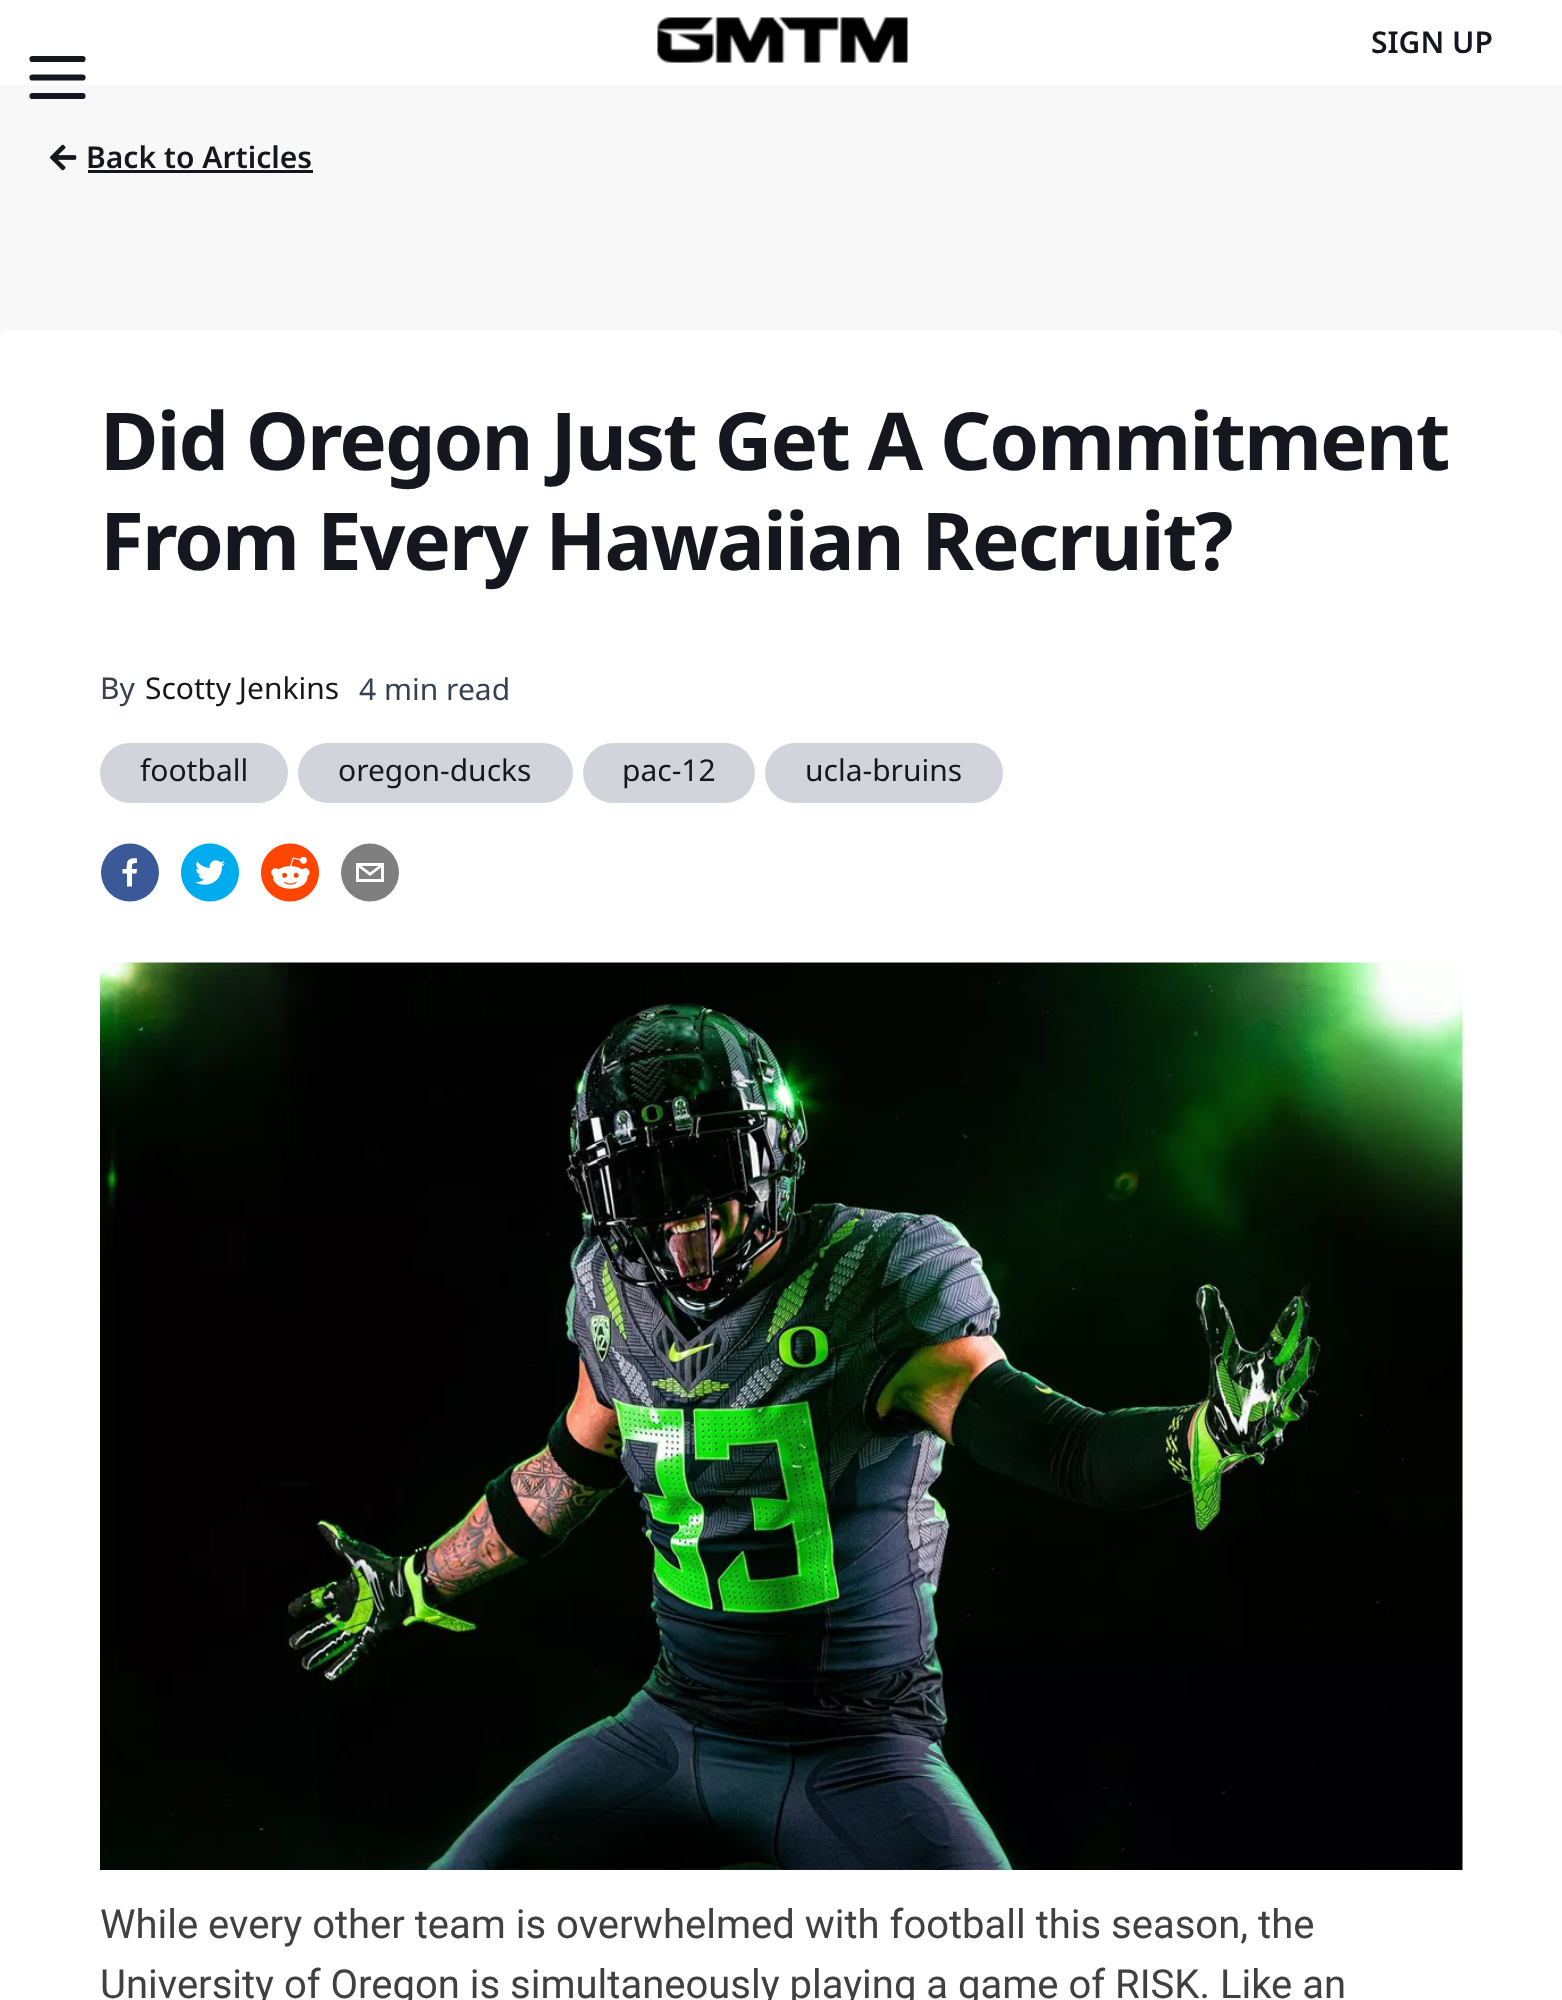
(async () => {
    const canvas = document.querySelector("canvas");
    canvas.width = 1562;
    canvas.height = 2000;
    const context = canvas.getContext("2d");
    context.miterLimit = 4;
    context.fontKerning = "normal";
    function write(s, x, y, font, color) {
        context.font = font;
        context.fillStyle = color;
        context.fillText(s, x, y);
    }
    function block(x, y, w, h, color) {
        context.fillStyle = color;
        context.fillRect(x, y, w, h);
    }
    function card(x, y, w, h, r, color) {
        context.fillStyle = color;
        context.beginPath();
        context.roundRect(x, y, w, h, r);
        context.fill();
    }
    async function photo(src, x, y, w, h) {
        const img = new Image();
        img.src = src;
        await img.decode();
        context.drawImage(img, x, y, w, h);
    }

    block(0, 0, 1562, 2000, "rgb(248, 248, 248)");
    block(0, 0, 1562, 85, "rgb(255, 255, 255)");
    await photo("media/1.png", 657, 17, 251, 46);
    write("SIGN UP", 1371, 53, "600 30px Noto Sans", "rgb(22, 22, 31)");
    context.beginPath();
    context.moveTo(32.5, 59);
    context.lineTo(82.5, 59);
    context.moveTo(32.5, 77.5);
    context.lineTo(82.5, 77.5);
    context.moveTo(32.5, 96);
    context.lineTo(82.5, 96);
    context.strokeStyle = "rgb(22, 22, 31)";
    context.lineWidth = 6.2;
    context.lineCap = "round";
    context.lineJoin = "round";
    context.stroke();
    await photo("media/2.png", 50, 144, 27, 27);
    write("Back to Articles", 86, 168, "600 30px Noto Sans", "rgb(22, 22, 31)");
    block(88, 170, 225, 3, "rgb(22, 22, 31)");
    context.fillStyle = "rgb(255, 255, 255)";
    context.beginPath();
    context.moveTo(10, 330);
    context.lineTo(1553, 330);
    context.bezierCurveTo(1558.5, 330, 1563, 334.5, 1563, 340);
    context.lineTo(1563, 2000);
    context.lineTo(0, 2000);
    context.lineTo(0, 340);
    context.bezierCurveTo(0, 334.5, 4.5, 330, 10, 330);
    context.closePath();
    context.fill();
    context.letterSpacing = "-2px";
    write("Did Oregon Just Get A Commitment", 100, 470, "bold 80px Noto Sans", "rgb(22, 22, 31)");
    write("From Every Hawaiian Recruit?", 100, 570, "bold 80px Noto Sans", "rgb(22, 22, 31)");
    context.letterSpacing = "0px";
    write("By", 100, 699, "30px Noto Sans", "rgb(55, 65, 81)");
    write("Scotty Jenkins", 145, 699, "30px Noto Sans", "rgb(22, 22, 31)");
    write("4 min read", 359, 700, "30px Noto Sans", "rgb(55, 65, 81)");
    card(100, 743, 188, 60, 30, "rgb(209, 213, 219)");
    write("football", 140, 781, "30px Noto Sans", "rgb(22, 22, 31)");
    card(298, 743, 275, 60, 30, "rgb(209, 213, 219)");
    write("oregon-ducks", 338, 781, "30px Noto Sans", "rgb(22, 22, 31)");
    card(583, 743, 172, 60, 30, "rgb(209, 213, 219)");
    write("pac-12", 622, 781, "30px Noto Sans", "rgb(22, 22, 31)");
    card(765, 743, 238, 60, 30, "rgb(209, 213, 219)");
    write("ucla-bruins", 805, 781, "30px Noto Sans", "rgb(22, 22, 31)");
    context.fillStyle = "rgb(59, 89, 152)";
    context.beginPath();
    context.arc(130, 872.5, 29, 0, Math.PI * 2);
    context.fill();
    context.fillStyle = "rgb(255, 255, 255)";
    context.beginPath();
    context.moveTo(132, 886.5);
    context.lineTo(132, 873.5);
    context.lineTo(136.5, 873.5);
    context.lineTo(137, 869);
    context.lineTo(132, 869);
    context.bezierCurveTo(132, 863.5, 131.5, 863, 137, 863);
    context.lineTo(137, 858.5);
    context.bezierCurveTo(133, 858, 127.5, 858.5, 127, 863.5);
    context.lineTo(126.5, 869);
    context.lineTo(122.5, 869);
    context.lineTo(122.5, 873.5);
    context.lineTo(127, 873.5);
    context.lineTo(127, 886.5);
    context.closePath();
    context.fill();
    await photo("media/3.png", 181, 843, 58, 59);
    await photo("media/4.png", 261, 843, 58, 59);
    context.fillStyle = "rgb(127, 127, 127)";
    context.beginPath();
    context.arc(370, 872.5, 29, 0, Math.PI * 2);
    context.fill();
    context.fillStyle = "rgb(255, 255, 255)";
    context.beginPath();
    context.moveTo(356, 863);
    context.lineTo(356, 882);
    context.lineTo(384, 882);
    context.lineTo(384, 863);
    context.closePath();
    context.moveTo(378.5, 866);
    context.lineTo(370, 872.5);
    context.lineTo(361.5, 866);
    context.closePath();
    context.moveTo(359, 879);
    context.lineTo(359, 867.5);
    context.lineTo(370, 876);
    context.lineTo(381, 867.5);
    context.lineTo(381, 879);
    context.closePath();
    context.fill();
    await photo("media/5.png", 100, 962, 1363, 908);
    write("While every other team is overwhelmed with football this season, the", 100, 1938, "40px Roboto", "rgb(64, 64, 64)");
    write("University of Oregon is simultaneously playing a game of RISK. Like an", 100, 1998, "40px Roboto", "rgb(64, 64, 64)");
})();
